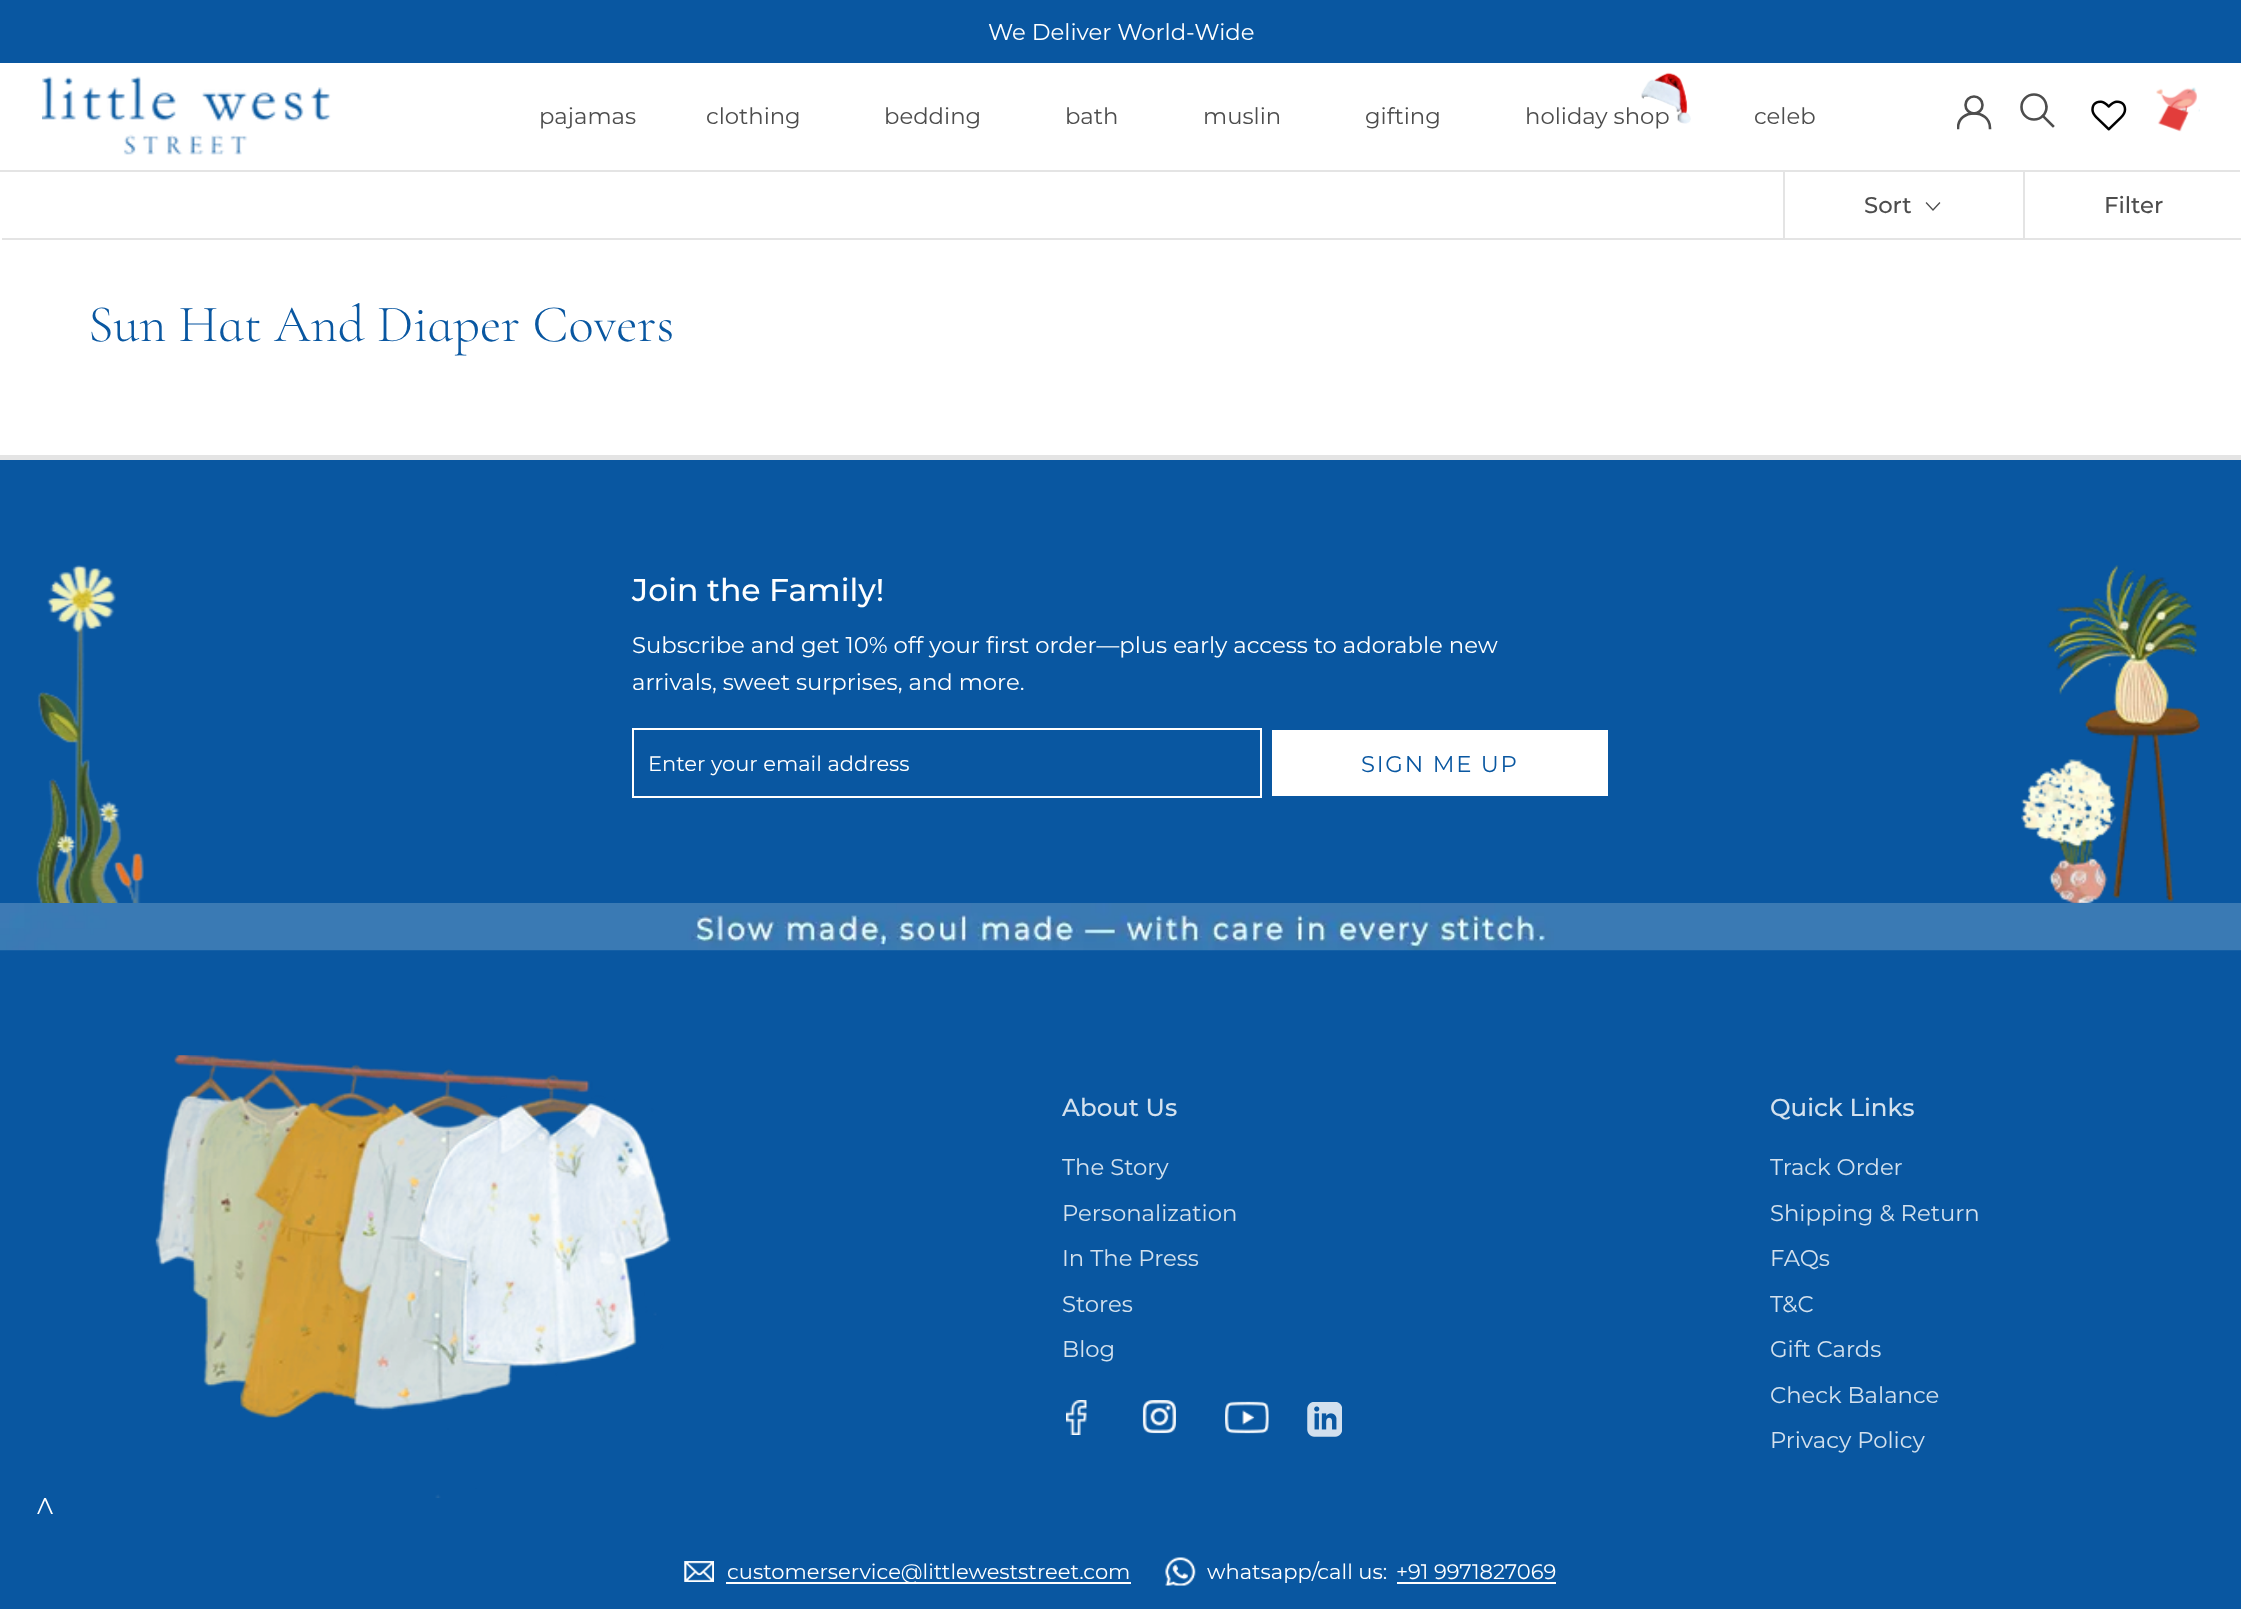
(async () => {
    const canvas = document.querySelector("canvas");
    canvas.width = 2241;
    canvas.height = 1609;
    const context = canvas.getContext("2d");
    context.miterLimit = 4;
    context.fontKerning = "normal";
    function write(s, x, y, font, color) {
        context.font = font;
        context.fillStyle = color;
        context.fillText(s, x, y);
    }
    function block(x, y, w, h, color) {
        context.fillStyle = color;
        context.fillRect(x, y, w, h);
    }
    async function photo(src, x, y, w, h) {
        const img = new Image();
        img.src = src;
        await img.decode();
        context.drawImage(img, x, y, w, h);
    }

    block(0, 0, 2241, 1609, "rgb(255, 255, 255)");
    block(0, 0, 2241, 63, "rgb(9, 87, 161)");
    write("We Deliver World-Wide", 988, 40, "22.75px Montserrat", "rgb(255, 255, 255)");
    await photo("media/1.png", 42, 76, 289, 79);
    write("pajamas", 539, 124, "22.75px Montserrat", "rgb(77, 77, 77)");
    write("clothing", 706, 124, "22.75px Montserrat", "rgb(77, 77, 77)");
    write("bedding", 884, 124, "22.75px Montserrat", "rgb(77, 77, 77)");
    write("bath", 1065, 124, "22.75px Montserrat", "rgb(77, 77, 77)");
    write("muslin", 1203, 124, "22.75px Montserrat", "rgb(77, 77, 77)");
    write("gifting", 1365, 124, "22.75px Montserrat", "rgb(77, 77, 77)");
    write("holiday shop", 1525, 124, "22.75px Montserrat", "rgb(77, 77, 77)");
    await photo("media/2.png", 1641, 72, 50, 52);
    write("celeb", 1754, 124, "22.75px Montserrat", "rgb(77, 77, 77)");
    context.save();
    context.beginPath();
    context.rect(1957, 95, 35, 35);
    context.clip();
    context.beginPath();
    context.moveTo(1958, 128);
    context.bezierCurveTo(1958, 108.5, 1990, 108.5, 1990, 128);
    context.strokeStyle = "rgb(77, 77, 77)";
    context.lineWidth = 2.6;
    context.lineCap = "square";
    context.stroke();
    context.restore();
    context.beginPath();
    context.arc(1974, 105, 8.5, 0, Math.PI * 2);
    context.strokeStyle = "rgb(77, 77, 77)";
    context.lineWidth = 2.6;
    context.stroke();
    context.beginPath();
    context.moveTo(2053, 126);
    context.lineTo(2043, 116);
    context.lineCap = "square";
    context.stroke();
    context.beginPath();
    context.arc(2034, 107, 12.5, 0, Math.PI * 2);
    context.stroke();
    await photo("media/3.png", 2091, 100, 36, 31);
    await photo("media/4.png", 2156, 87, 44, 45);
    context.fillStyle = "rgb(228, 228, 228)";
    context.beginPath();
    context.moveTo(-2, 170);
    context.lineTo(-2, 236);
    context.lineTo(0, 236);
    context.lineTo(0, 172);
    context.lineTo(2240, 172);
    context.lineTo(2240, 170);
    context.closePath();
    context.fill();
    context.beginPath();
    context.moveTo(2, 238);
    context.lineTo(2, 240);
    context.lineTo(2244, 240);
    context.lineTo(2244, 173);
    context.lineTo(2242, 173);
    context.lineTo(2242, 238);
    context.closePath();
    context.fill();
    block(1783, 172, 2, 66, "rgb(228, 228, 228)");
    write("Sort", 1864, 213, "500 22.75px Montserrat", "rgb(77, 77, 77)");
    context.beginPath();
    context.moveTo(1939.5, 203);
    context.lineTo(1933, 210);
    context.lineTo(1926.5, 203);
    context.lineWidth = 1.3;
    context.stroke();
    block(2023, 172, 2, 66, "rgb(228, 228, 228)");
    write("Filter", 2104, 213, "500 22.75px Montserrat", "rgb(77, 77, 77)");
    write("Sun Hat And Diaper Covers", 88, 341, "300 52.5px Cormorant Infant", "rgb(9, 87, 161)");
    block(0, 455, 2241, 5, "rgb(228, 228, 228)");
    block(0, 460, 2241, 443, "rgb(9, 87, 161)");
    await photo("media/5.png", 36, 565, 108, 338);
    write("Join the Family!", 632, 601, "500 31.5px Montserrat", "rgb(255, 255, 255)");
    write("Subscribe and get 10% off your first order—plus early access to adorable new", 632, 653, "22.75px Montserrat", "rgb(255, 255, 255)");
    write("arrivals, sweet surprises, and more.", 632, 690, "22.75px Montserrat", "rgb(255, 255, 255)");
    await photo("media/6.png", 2021, 565, 179, 338);
    context.strokeStyle = "rgb(255, 255, 255)";
    context.lineWidth = 2;
    context.strokeRect(633, 729, 628, 68);
    write("Enter your email address", 648, 771, "21px Montserrat", "rgb(255, 255, 255)");
    block(1272, 730, 336, 66, "rgb(255, 255, 255)");
    context.letterSpacing = "1.75px";
    write("SIGN ME UP", 1361, 772, "22.75px Montserrat", "rgb(9, 87, 161)");
    block(0, 950, 2241, 659, "rgb(9, 87, 161)");
    await photo("media/7.png", 0, 903, 2241, 48);
    context.letterSpacing = "0px";
    context.fillStyle = "rgb(255, 255, 255)";
    context.save();
    context.translate(53, 1498);
    context.rotate(180 * Math.PI / 180);
    context.fillText("V", 0, 0);
    context.restore();
    await photo("media/8.png", 155, 1055, 516, 443);
    write("About Us", 1062, 1116, "500 24.5px Montserrat", "rgb(211, 225, 238)");
    write("The Story", 1062, 1175, "22.75px Montserrat", "rgb(211, 225, 238)");
    write("Personalization", 1062, 1221, "22.75px Montserrat", "rgb(211, 225, 238)");
    write("In The Press", 1062, 1266, "22.75px Montserrat", "rgb(211, 225, 238)");
    write("Stores", 1062, 1312, "22.75px Montserrat", "rgb(211, 225, 238)");
    write("Blog", 1062, 1357, "22.75px Montserrat", "rgb(211, 225, 238)");
    await photo("media/9.png", 1066, 1400, 21, 35);
    await photo("media/10.png", 1142, 1400, 34, 34);
    await photo("media/11.png", 1225, 1401, 44, 33);
    await photo("media/12.png", 1307, 1402, 35, 35);
    write("Quick Links", 1770, 1116, "500 24.5px Montserrat", "rgb(211, 225, 238)");
    write("Track Order", 1770, 1175, "22.75px Montserrat", "rgb(211, 225, 238)");
    write("Shipping & Return", 1770, 1221, "22.75px Montserrat", "rgb(211, 225, 238)");
    write("FAQs", 1770, 1266, "22.75px Montserrat", "rgb(211, 225, 238)");
    write("T&C", 1770, 1312, "22.75px Montserrat", "rgb(211, 225, 238)");
    write("Gift Cards", 1770, 1357, "22.75px Montserrat", "rgb(211, 225, 238)");
    write("Check Balance", 1770, 1403, "22.75px Montserrat", "rgb(211, 225, 238)");
    write("Privacy Policy", 1770, 1448, "22.75px Montserrat", "rgb(211, 225, 238)");
    await photo("media/13.png", 684, 1561, 30, 21);
    block(726, 1582, 405, 2, "rgb(255, 255, 255)");
    write("customerservice@littleweststreet.com", 727, 1579, "21px Montserrat", "rgb(255, 255, 255)");
    await photo("media/14.png", 1165, 1557, 31, 29);
    write("whatsapp/call us:", 1207, 1579, "21px Montserrat", "rgb(255, 255, 255)");
    write("+91 9971827069", 1396, 1579, "21px Montserrat", "rgb(255, 255, 255)");
    block(1397, 1582, 159, 2, "rgb(255, 255, 255)");
})();
